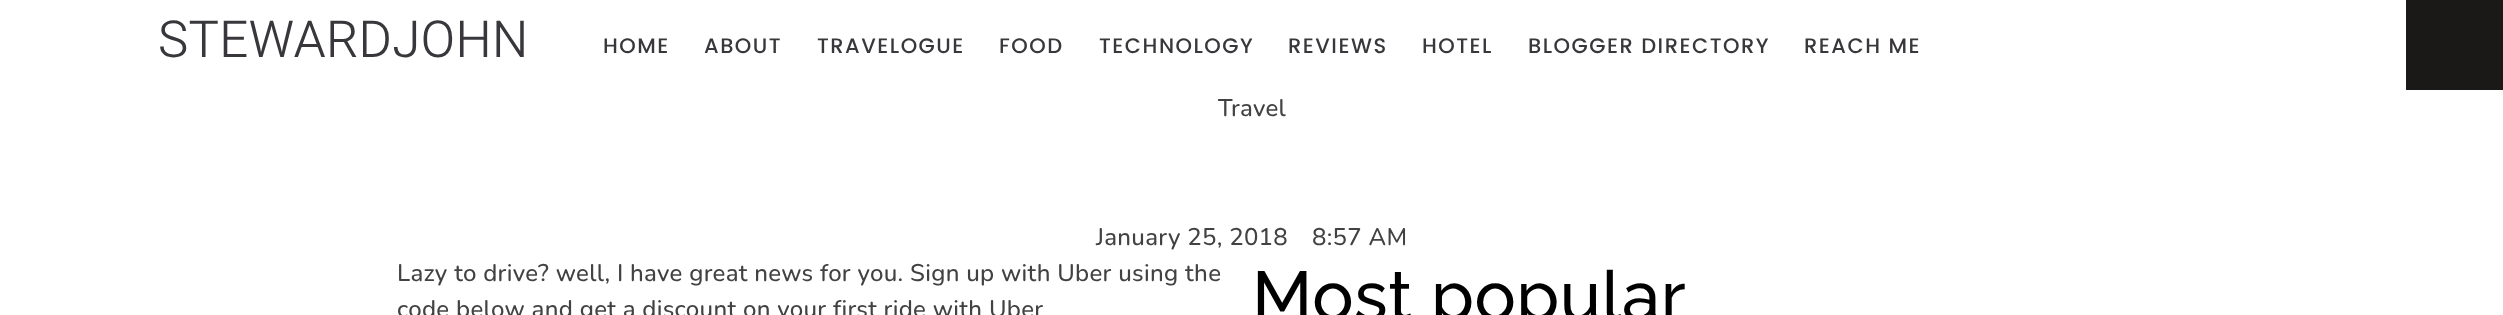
(async () => {
    const canvas = document.querySelector("canvas");
    canvas.width = 2503;
    canvas.height = 315;
    const context = canvas.getContext("2d");
    context.miterLimit = 4;
    context.fontKerning = "normal";
    function write(s, x, y, font, color) {
        context.font = font;
        context.fillStyle = color;
        context.fillText(s, x, y);
    }
    function block(x, y, w, h, color) {
        context.fillStyle = color;
        context.fillRect(x, y, w, h);
    }

    block(0, 0, 2503, 315, "rgb(255, 255, 255)");
    context.letterSpacing = "0.3px";
    write("STEWARDJOHN", 158, 57, "300 51px Heebo", "rgb(57, 55, 59)");
    context.letterSpacing = "1.5px";
    write("HOME", 603, 53, "500 21px Poppins", "rgb(57, 55, 59)");
    write("ABOUT", 704, 53, "500 21px Poppins", "rgb(57, 55, 59)");
    write("TRAVELOGUE", 817, 53, "500 21px Poppins", "rgb(57, 55, 59)");
    write("FOOD", 999, 53, "500 21px Poppins", "rgb(57, 55, 59)");
    write("TECHNOLOGY", 1099, 53, "500 21px Poppins", "rgb(57, 55, 59)");
    write("REVIEWS", 1288, 53, "500 21px Poppins", "rgb(57, 55, 59)");
    write("HOTEL", 1422, 53, "500 21px Poppins", "rgb(57, 55, 59)");
    write("BLOGGER DIRECTORY", 1528, 53, "500 21px Poppins", "rgb(57, 55, 59)");
    write("REACH ME", 1804, 53, "500 21px Poppins", "rgb(57, 55, 59)");
    block(2406, 0, 97, 90, "rgb(27, 25, 23)");
    context.letterSpacing = "0.3px";
    write("Travel", 1218, 116, "500 24px Nunito", "rgb(66, 66, 66)");
    write("January 25, 2018", 1096, 245, "500 24px Nunito", "rgb(66, 66, 66)");
    write("8:57 AM", 1312, 245, "500 24px Nunito", "rgb(66, 66, 66)");
    write("Lazy to drive? well, I have great news for you. Sign up with Uber using the", 397, 281, "500 24px Nunito", "rgb(66, 66, 66)");
    write("code below and get a discount on your first ride with Uber", 397, 317, "500 24px Nunito", "rgb(66, 66, 66)");
    context.letterSpacing = "0.5px";
    write("Most popular", 1252, 320, "500 69px Raleway", "rgb(0, 0, 0)");
})();
